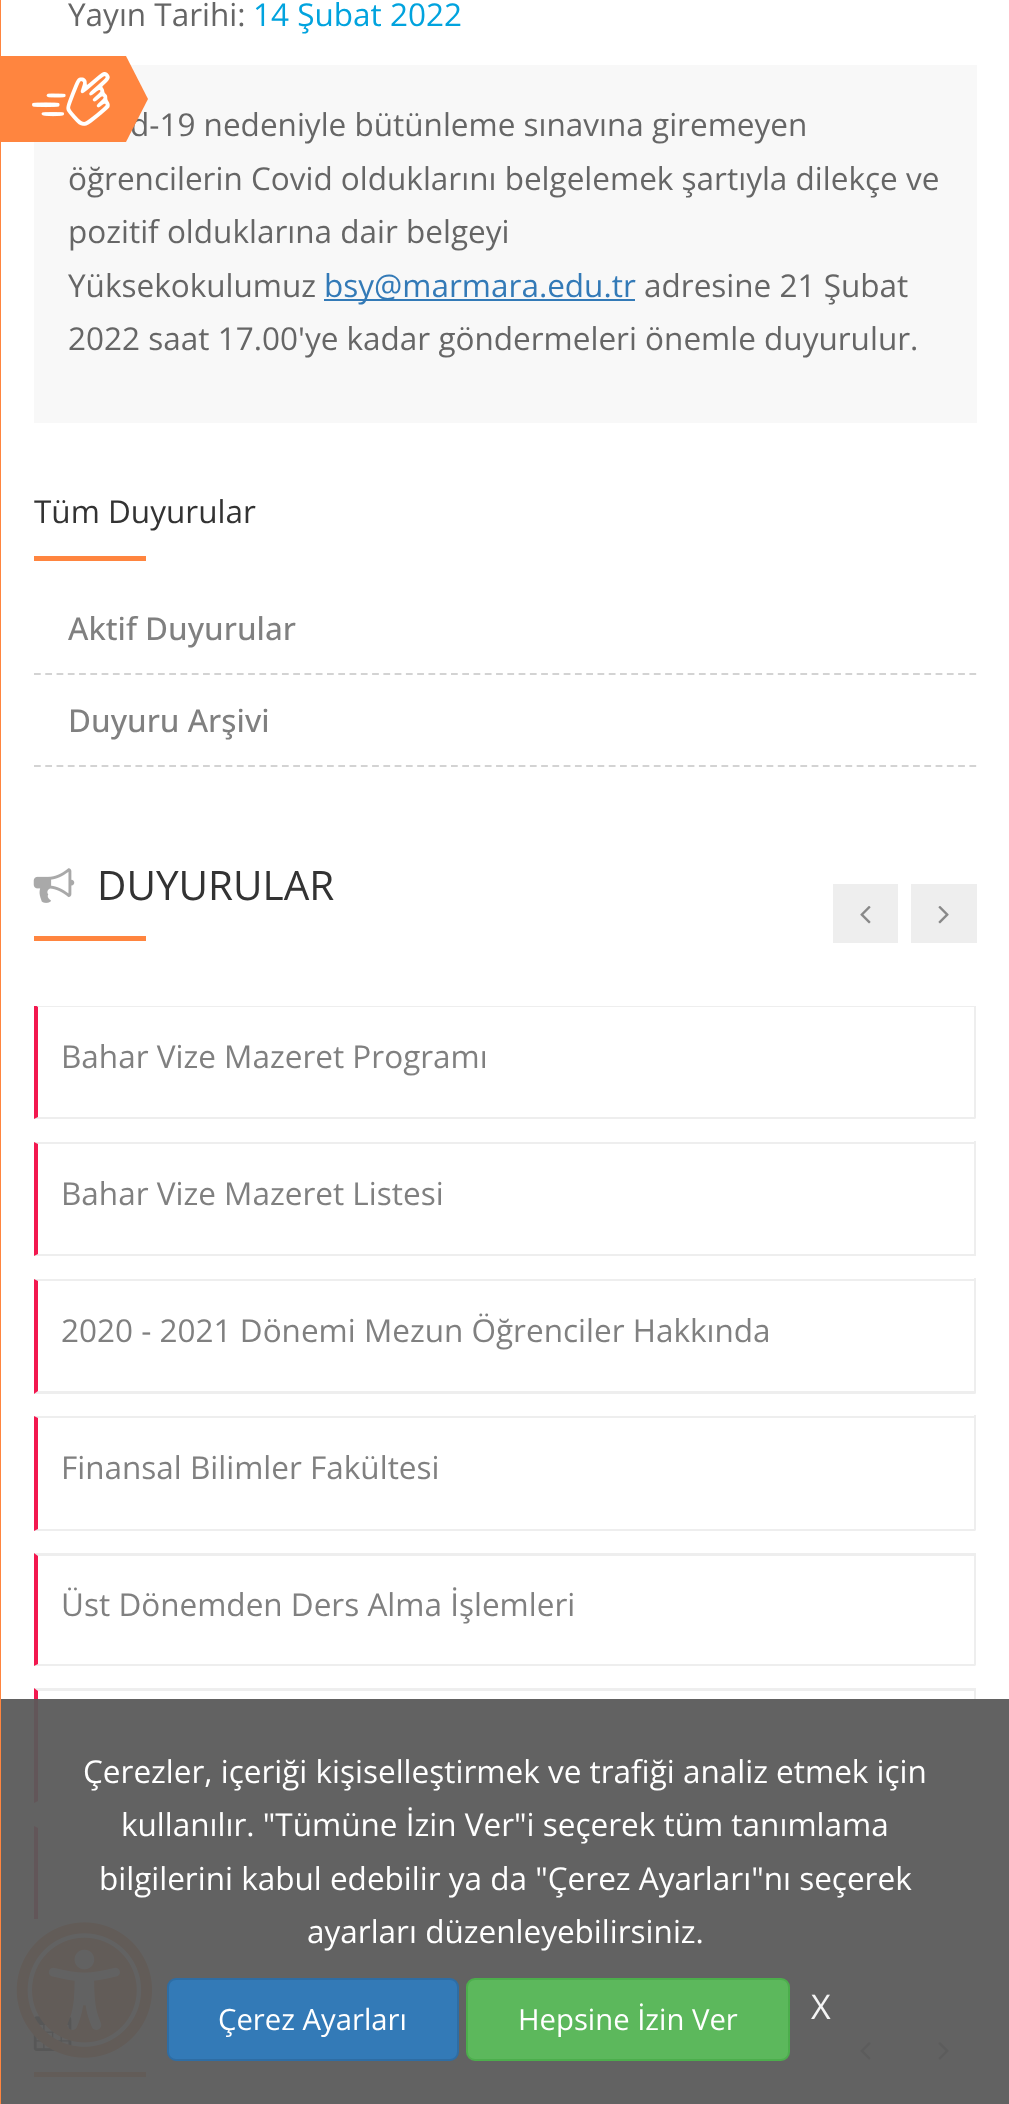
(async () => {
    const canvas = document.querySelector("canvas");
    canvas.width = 1009;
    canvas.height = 2104;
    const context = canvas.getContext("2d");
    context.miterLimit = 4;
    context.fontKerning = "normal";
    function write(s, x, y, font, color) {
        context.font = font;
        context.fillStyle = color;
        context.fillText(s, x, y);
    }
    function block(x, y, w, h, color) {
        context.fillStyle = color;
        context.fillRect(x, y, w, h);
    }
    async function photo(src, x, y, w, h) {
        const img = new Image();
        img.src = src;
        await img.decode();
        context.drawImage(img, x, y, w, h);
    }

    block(0, 0, 1009, 2104, "rgb(255, 255, 255)");
    block(0, 0, 1, 2104, "rgb(255, 133, 63)");
    block(34, 65, 943, 358, "rgb(248, 248, 248)");
    block(1, 56, 125, 86, "rgb(255, 133, 63)");
    await photo("media/1.png", 32, 72, 78, 54);
    write("d-19 nedeniyle bütünleme sınavına giremeyen", 130, 136, "31.5px Open Sans", "rgb(102, 102, 102)");
    context.fillStyle = "rgb(255, 133, 63)";
    context.beginPath();
    context.moveTo(126, 142);
    context.lineTo(126, 56);
    context.lineTo(148, 99);
    context.closePath();
    context.fill();
    write("Yayın Tarihi:", 68, 26, "31.5px Open Sans", "rgb(102, 102, 102)");
    write("14 Şubat 2022", 253, 26, "31.5px Open Sans", "rgb(1, 163, 222)");
    write("öğrencilerin Covid olduklarını belgelemek şartıyla dilekçe ve", 68, 190, "31.5px Open Sans", "rgb(102, 102, 102)");
    write("pozitif olduklarına dair belgeyi", 68, 243, "31.5px Open Sans", "rgb(102, 102, 102)");
    write("Yüksekokulumuz", 68, 297, "31.5px Open Sans", "rgb(102, 102, 102)");
    block(324, 299, 311, 2, "rgb(51, 122, 183)");
    write("bsy@marmara.edu.tr", 324, 297, "31.5px Open Sans", "rgb(51, 122, 183)");
    write("adresine 21 Şubat", 644, 297, "31.5px Open Sans", "rgb(102, 102, 102)");
    write("2022 saat 17.00'ye kadar göndermeleri önemle duyurulur.", 68, 350, "31.5px Open Sans", "rgb(102, 102, 102)");
    write("Tüm Duyurular", 34, 523, "31.5px Open Sans", "rgb(51, 51, 51)");
    block(34, 556, 112, 5, "rgb(255, 133, 63)");
    context.beginPath();
    context.moveTo(34, 674);
    context.lineTo(976.5, 674);
    context.strokeStyle = "rgb(211, 211, 211)";
    context.lineWidth = 2.2;
    context.setLineDash([6.75, 4.52]);
    context.stroke();
    write("Aktif Duyurular", 68, 640, "500 31.5px Open Sans", "rgb(128, 128, 128)");
    context.beginPath();
    context.moveTo(34, 766);
    context.lineTo(976.5, 766);
    context.stroke();
    write("Duyuru Arşivi", 68, 732, "500 31.5px Open Sans", "rgb(128, 128, 128)");
    await photo("media/2.png", 33, 868, 42, 35);
    write("DUYURULAR", 97, 900, "40.5px Open Sans", "rgb(51, 51, 51)");
    block(34, 936, 112, 5, "rgb(255, 133, 63)");
    block(833, 884, 65, 59, "rgb(238, 238, 238)");
    await photo("media/3.png", 860, 906, 11, 18);
    block(911, 884, 66, 59, "rgb(238, 238, 238)");
    await photo("media/4.png", 938, 906, 11, 18);
    context.save();
    context.beginPath();
    context.rect(34, 1006, 943, 913);
    context.clip();
    context.beginPath();
    context.moveTo(34, 1004);
    context.lineTo(976, 1004);
    context.lineTo(974, 1007);
    context.lineTo(38, 1007);
    context.closePath();
    context.fill();
    context.restore();
    block(974, 1006, 2, 112, "rgb(238, 238, 238)");
    context.beginPath();
    context.moveTo(976, 1119);
    context.lineTo(34, 1119);
    context.lineTo(38, 1117);
    context.lineTo(974, 1117);
    context.closePath();
    context.fill();
    context.save();
    context.beginPath();
    context.rect(34, 1006, 943, 913);
    context.clip();
    context.fillStyle = "rgb(242, 24, 79)";
    context.beginPath();
    context.moveTo(34, 1119);
    context.lineTo(34, 1004);
    context.lineTo(38, 1007);
    context.lineTo(38, 1117);
    context.closePath();
    context.fill();
    context.restore();
    write("Bahar Vize Mazeret Programı", 61, 1068, "31.5px Open Sans", "rgb(128, 128, 128)");
    context.fillStyle = "rgb(238, 238, 238)";
    context.beginPath();
    context.moveTo(34, 1142);
    context.lineTo(976, 1142);
    context.lineTo(974, 1144);
    context.lineTo(38, 1144);
    context.closePath();
    context.fill();
    block(974, 1141, 2, 115, "rgb(238, 238, 238)");
    context.beginPath();
    context.moveTo(976, 1256);
    context.lineTo(34, 1256);
    context.lineTo(38, 1254);
    context.lineTo(974, 1254);
    context.closePath();
    context.fill();
    context.fillStyle = "rgb(242, 24, 79)";
    context.beginPath();
    context.moveTo(34, 1256);
    context.lineTo(34, 1142);
    context.lineTo(38, 1144);
    context.lineTo(38, 1254);
    context.closePath();
    context.fill();
    write("Bahar Vize Mazeret Listesi", 61, 1205, "31.5px Open Sans", "rgb(128, 128, 128)");
    context.fillStyle = "rgb(238, 238, 238)";
    context.beginPath();
    context.moveTo(34, 1279);
    context.lineTo(976, 1279);
    context.lineTo(974, 1281);
    context.lineTo(38, 1281);
    context.closePath();
    context.fill();
    block(974, 1278, 2, 115, "rgb(238, 238, 238)");
    context.beginPath();
    context.moveTo(976, 1394);
    context.lineTo(34, 1394);
    context.lineTo(38, 1391);
    context.lineTo(974, 1391);
    context.closePath();
    context.fill();
    context.fillStyle = "rgb(242, 24, 79)";
    context.beginPath();
    context.moveTo(34, 1394);
    context.lineTo(34, 1279);
    context.lineTo(38, 1281);
    context.lineTo(38, 1391);
    context.closePath();
    context.fill();
    write("2020 - 2021 Dönemi Mezun Öğrenciler Hakkında", 61, 1342, "31.5px Open Sans", "rgb(128, 128, 128)");
    context.fillStyle = "rgb(238, 238, 238)";
    context.beginPath();
    context.moveTo(34, 1416);
    context.lineTo(976, 1416);
    context.lineTo(974, 1418);
    context.lineTo(38, 1418);
    context.closePath();
    context.fill();
    block(974, 1415, 2, 115, "rgb(238, 238, 238)");
    context.beginPath();
    context.moveTo(976, 1531);
    context.lineTo(34, 1531);
    context.lineTo(38, 1529);
    context.lineTo(974, 1529);
    context.closePath();
    context.fill();
    context.fillStyle = "rgb(242, 24, 79)";
    context.beginPath();
    context.moveTo(34, 1531);
    context.lineTo(34, 1416);
    context.lineTo(38, 1418);
    context.lineTo(38, 1529);
    context.closePath();
    context.fill();
    write("Finansal Bilimler Fakültesi", 61, 1479, "31.5px Open Sans", "rgb(128, 128, 128)");
    context.fillStyle = "rgb(238, 238, 238)";
    context.beginPath();
    context.moveTo(34, 1553);
    context.lineTo(976, 1553);
    context.lineTo(974, 1556);
    context.lineTo(38, 1556);
    context.closePath();
    context.fill();
    block(974, 1553, 2, 112, "rgb(238, 238, 238)");
    context.beginPath();
    context.moveTo(976, 1666);
    context.lineTo(34, 1666);
    context.lineTo(38, 1664);
    context.lineTo(974, 1664);
    context.closePath();
    context.fill();
    context.fillStyle = "rgb(242, 24, 79)";
    context.beginPath();
    context.moveTo(34, 1666);
    context.lineTo(34, 1553);
    context.lineTo(38, 1556);
    context.lineTo(38, 1664);
    context.closePath();
    context.fill();
    write("Üst Dönemden Ders Alma İşlemleri", 61, 1616, "31.5px Open Sans", "rgb(128, 128, 128)");
    context.fillStyle = "rgb(238, 238, 238)";
    context.beginPath();
    context.moveTo(34, 1688);
    context.lineTo(976, 1688);
    context.lineTo(974, 1691);
    context.lineTo(38, 1691);
    context.closePath();
    context.fill();
    block(974, 1688, 2, 114, "rgb(238, 238, 238)");
    context.beginPath();
    context.moveTo(976, 1803);
    context.lineTo(34, 1803);
    context.lineTo(38, 1801);
    context.lineTo(974, 1801);
    context.closePath();
    context.fill();
    context.fillStyle = "rgb(242, 24, 79)";
    context.beginPath();
    context.moveTo(34, 1803);
    context.lineTo(34, 1688);
    context.lineTo(38, 1691);
    context.lineTo(38, 1801);
    context.closePath();
    context.fill();
    context.fillStyle = "rgb(238, 238, 238)";
    context.beginPath();
    context.moveTo(34, 1826);
    context.lineTo(976, 1826);
    context.lineTo(974, 1828);
    context.lineTo(38, 1828);
    context.closePath();
    context.fill();
    block(974, 1825, 2, 94, "rgb(238, 238, 238)");
    context.save();
    context.beginPath();
    context.rect(34, 1006, 943, 913);
    context.clip();
    context.fillStyle = "rgb(242, 24, 79)";
    context.beginPath();
    context.moveTo(34, 1940);
    context.lineTo(34, 1826);
    context.lineTo(38, 1828);
    context.lineTo(38, 1938);
    context.closePath();
    context.fill();
    context.restore();
    await photo("media/5.png", 33, 2016, 39, 36);
    block(34, 2072, 112, 5, "rgb(255, 133, 63)");
    block(833, 2021, 65, 58, "rgb(238, 238, 238)");
    await photo("media/6.png", 860, 2042, 11, 18);
    block(911, 2021, 66, 58, "rgb(238, 238, 238)");
    await photo("media/7.png", 938, 2042, 11, 18);
    await photo("media/8.png", 16, 1922, 137, 136);
    block(1, 1699, 1008, 405, "rgba(90, 90, 90, 0.95)");
    write("Çerezler, içeriği kişiselleştirmek ve trafiği analiz etmek için", 83, 1783, "31.5px Open Sans", "rgb(255, 255, 255)");
    write("kullanılır. \"Tümüne İzin Ver\"i seçerek tüm tanımlama", 121, 1836, "31.5px Open Sans", "rgb(255, 255, 255)");
    write("bilgilerini kabul edebilir ya da \"Çerez Ayarları\"nı seçerek", 99, 1890, "31.5px Open Sans", "rgb(255, 255, 255)");
    write("ayarları düzenleyebilirsiniz.", 307, 1943, "31.5px Open Sans", "rgb(255, 255, 255)");
    context.fillStyle = "rgb(51, 122, 183)";
    context.beginPath();
    context.roundRect(168, 1979, 290, 81, 8);
    context.fill();
    context.strokeStyle = "rgb(46, 109, 164)";
    context.lineWidth = 2;
    context.setLineDash([]);
    context.stroke();
    write("Çerez Ayarları", 218, 2030, "29.25px Open Sans", "rgb(255, 255, 255)");
    context.fillStyle = "rgb(92, 184, 92)";
    context.beginPath();
    context.roundRect(467, 1979, 322, 81, 8);
    context.fill();
    context.strokeStyle = "rgb(76, 174, 76)";
    context.stroke();
    write("Hepsine İzin Ver", 518, 2030, "29.25px Open Sans", "rgb(255, 255, 255)");
    write("X", 811, 2019, "34px Open Sans", "rgb(245, 245, 245)");
})();
